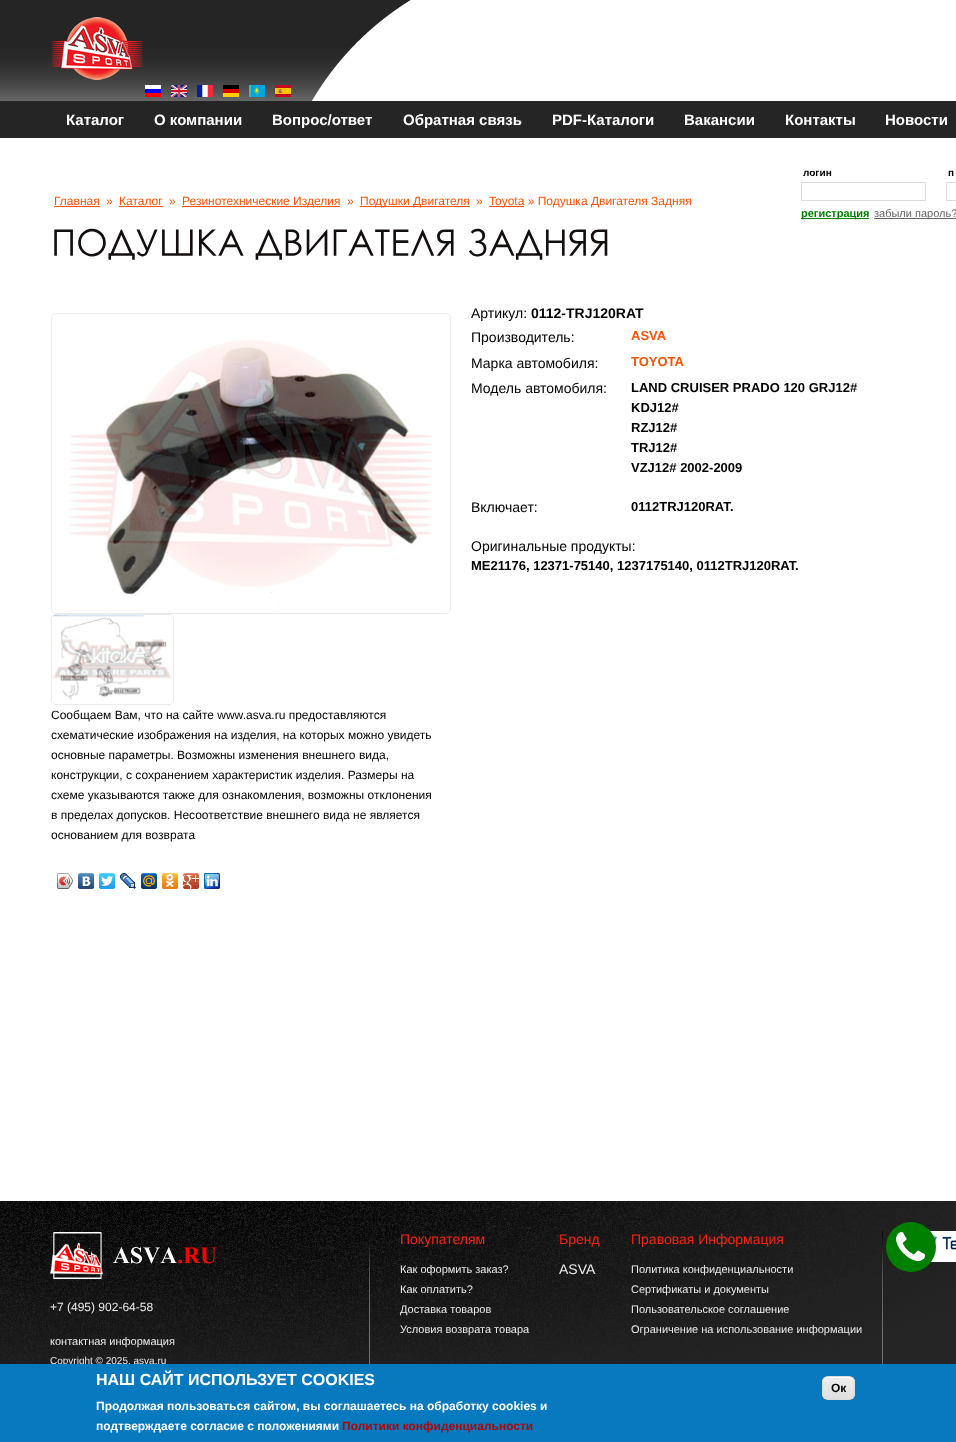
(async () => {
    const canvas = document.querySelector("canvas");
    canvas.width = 956;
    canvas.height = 1442;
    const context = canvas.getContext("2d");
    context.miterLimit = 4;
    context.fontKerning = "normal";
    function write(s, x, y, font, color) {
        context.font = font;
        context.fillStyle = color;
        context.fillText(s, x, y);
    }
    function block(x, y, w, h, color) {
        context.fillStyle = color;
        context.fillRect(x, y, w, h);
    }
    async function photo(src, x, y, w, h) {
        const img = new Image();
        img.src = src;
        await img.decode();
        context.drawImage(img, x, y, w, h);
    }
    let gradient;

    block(0, 0, 956, 1442, "rgb(255, 255, 255)");
    block(0, 101, 956, 37, "rgb(37, 37, 37)");
    await photo("media/1.png", 0, 0, 411, 101);
    await photo("media/2.png", 51, 17, 92, 63);
    await photo("media/3.png", 145, 85, 16, 12);
    await photo("media/4.png", 171, 85, 16, 12);
    await photo("media/5.png", 197, 85, 16, 12);
    await photo("media/6.png", 223, 85, 16, 12);
    await photo("media/7.png", 249, 85, 16, 12);
    await photo("media/8.png", 275, 85, 16, 12);
    write("Каталог", 66, 125, "bold 15px Liberation Sans", "rgb(255, 255, 255)");
    write("О компании", 154, 125, "bold 15px Liberation Sans", "rgb(255, 255, 255)");
    write("Вопрос/ответ", 272, 125, "bold 15px Liberation Sans", "rgb(255, 255, 255)");
    write("Обратная связь", 403, 125, "bold 15px Liberation Sans", "rgb(255, 255, 255)");
    write("PDF-Каталоги", 552, 125, "bold 15px Liberation Sans", "rgb(255, 255, 255)");
    write("Вакансии", 684, 125, "bold 15px Liberation Sans", "rgb(255, 255, 255)");
    write("Контакты", 785, 125, "bold 15px Liberation Sans", "rgb(255, 255, 255)");
    write("Новости", 885, 125, "bold 15px Liberation Sans", "rgb(255, 255, 255)");
    write("Главная", 54, 205, "12px Liberation Sans", "rgb(255, 82, 0)");
    block(54, 206, 46, 1, "rgb(255, 82, 0)");
    write("»", 106, 205, "12px Liberation Sans", "rgb(255, 82, 0)");
    write("Каталог", 119, 205, "12px Liberation Sans", "rgb(255, 82, 0)");
    block(119, 206, 44, 1, "rgb(255, 82, 0)");
    write("»", 169, 205, "12px Liberation Sans", "rgb(255, 82, 0)");
    block(182, 206, 158, 1, "rgb(255, 82, 0)");
    write("Резинотехнические Изделия", 182, 205, "12px Liberation Sans", "rgb(255, 82, 0)");
    write("»", 347, 205, "12px Liberation Sans", "rgb(255, 82, 0)");
    block(360, 206, 110, 1, "rgb(255, 82, 0)");
    write("Подушки Двигателя", 360, 205, "12px Liberation Sans", "rgb(255, 82, 0)");
    write("»", 476, 205, "12px Liberation Sans", "rgb(255, 82, 0)");
    block(489, 206, 35, 1, "rgb(255, 82, 0)");
    write("Toyota » Подушка Двигателя Задняя", 489, 205, "12px Liberation Sans", "rgb(255, 82, 0)");
    await photo("media/9.png", 54, 228, 190, 32);
    await photo("media/10.png", 255, 229, 199, 31);
    await photo("media/11.png", 469, 228, 139, 32);
    write("Артикул:", 471, 318, "14px Liberation Sans", "rgb(0, 0, 0)");
    write("0112-TRJ120RAT", 531, 318, "bold 14px Liberation Sans", "rgb(0, 0, 0)");
    write("Производитель:", 471, 342, "14px Liberation Sans", "rgb(0, 0, 0)");
    write("ASVA", 631, 340, "bold 13px Liberation Sans", "rgb(255, 82, 0)");
    write("Марка автомобиля:", 471, 368, "14px Liberation Sans", "rgb(0, 0, 0)");
    write("TOYOTA", 631, 366, "bold 13px Liberation Sans", "rgb(255, 82, 0)");
    write("Модель автомобиля:", 471, 393, "14px Liberation Sans", "rgb(0, 0, 0)");
    write("LAND CRUISER PRADO 120 GRJ12#", 631, 392, "bold 13px Liberation Sans", "rgb(0, 0, 0)");
    write("KDJ12#", 631, 412, "bold 13px Liberation Sans", "rgb(0, 0, 0)");
    write("RZJ12#", 631, 432, "bold 13px Liberation Sans", "rgb(0, 0, 0)");
    write("TRJ12#", 631, 452, "bold 13px Liberation Sans", "rgb(0, 0, 0)");
    write("VZJ12# 2002-2009", 631, 472, "bold 13px Liberation Sans", "rgb(0, 0, 0)");
    write("Включает:", 471, 512, "14px Liberation Sans", "rgb(0, 0, 0)");
    write("0112TRJ120RAT", 631, 511, "bold 13px Liberation Sans", "rgb(0, 0, 0)");
    write(".", 730, 511, "bold 13px Liberation Sans", "rgb(0, 0, 0)");
    write("Оригинальные продукты:", 471, 551, "14px Liberation Sans", "rgb(0, 0, 0)");
    write("ME21176, 12371-75140, 1237175140, 0112TRJ120RAT", 471, 570, "bold 13px Liberation Sans", "rgb(0, 0, 0)");
    write(".", 795, 570, "bold 13px Liberation Sans", "rgb(0, 0, 0)");
    context.beginPath();
    context.roundRect(51.5, 313.5, 399, 300, 4.5);
    context.strokeStyle = "rgb(235, 235, 235)";
    context.stroke();
    await photo("media/12.png", 52, 314, 398, 299);
    context.beginPath();
    context.roundRect(51.5, 614.5, 122, 90, 4.5);
    context.stroke();
    await photo("media/13.png", 52, 615, 121, 89);
    write("Сообщаем Вам, что на сайте www.asva.ru предоставляются", 51, 719, "12px Liberation Sans", "rgb(0, 0, 0)");
    write("схематические изображения на изделия, на которых можно увидеть", 51, 739, "12px Liberation Sans", "rgb(0, 0, 0)");
    write("основные параметры. Возможны изменения внешнего вида,", 51, 759, "12px Liberation Sans", "rgb(0, 0, 0)");
    write("конструкции, с сохранением характеристик изделия. Размеры на", 51, 779, "12px Liberation Sans", "rgb(0, 0, 0)");
    write("схеме указываются также для ознакомления, возможны отклонения", 51, 799, "12px Liberation Sans", "rgb(0, 0, 0)");
    write("в пределах допусков. Несоответствие внешнего вида не является", 51, 819, "12px Liberation Sans", "rgb(0, 0, 0)");
    write("основанием для возврата", 51, 839, "12px Liberation Sans", "rgb(0, 0, 0)");
    await photo("media/14.png", 57, 873, 16, 16);
    await photo("media/15.png", 57, 873, 16, 16);
    await photo("media/16.png", 78, 873, 16, 16);
    await photo("media/17.png", 99, 873, 16, 16);
    await photo("media/18.png", 120, 873, 16, 16);
    await photo("media/19.png", 141, 873, 16, 16);
    await photo("media/20.png", 162, 873, 16, 16);
    await photo("media/21.png", 183, 873, 16, 16);
    await photo("media/22.png", 204, 873, 16, 16);
    await photo("media/24.png", 0, 1201, 955, 163);
    block(955, 1201, 1, 163, "rgb(37, 37, 37)");
    await photo("media/26.png", 930, 1231, 26, 31);
    context.fillStyle = "rgb(0, 128, 0)";
    context.beginPath();
    context.arc(911, 1247, 25, 0, Math.PI * 2);
    context.fill();
    await photo("media/23.png", 896, 1232, 30, 30);
    write("логин", 803, 176, "bold 10px Liberation Sans", "rgb(0, 0, 0)");
    context.strokeStyle = "rgb(221, 221, 221)";
    context.strokeRect(801.5, 182.5, 124, 18);
    write("п", 948, 176, "bold 10px Liberation Sans", "rgb(0, 0, 0)");
    context.strokeRect(946.5, 182.5, 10, 18);
    block(801, 218, 68, 1, "rgb(0, 128, 0)");
    write("регистрация", 801, 217, "bold 11px Liberation Sans", "rgb(0, 128, 0)");
    block(874, 218, 82, 1, "rgb(100, 100, 100)");
    write("забыли пароль?", 874, 217, "11px Liberation Sans", "rgb(100, 100, 100)");
    write("Покупателям", 400, 1244, "14px Liberation Sans", "rgb(248, 36, 16)");
    write("Как оформить заказ?", 400, 1273, "11px Liberation Sans", "rgb(235, 235, 235)");
    write("Как оплатить?", 400, 1293, "11px Liberation Sans", "rgb(235, 235, 235)");
    write("Доставка товаров", 400, 1313, "11px Liberation Sans", "rgb(235, 235, 235)");
    write("Условия возврата товара", 400, 1333, "11px Liberation Sans", "rgb(235, 235, 235)");
    write("Бренд", 559, 1244, "14px Liberation Sans", "rgb(248, 36, 16)");
    write("ASVA", 559, 1274, "14px Liberation Sans", "rgb(235, 235, 235)");
    write("Правовая Информация", 631, 1244, "14px Liberation Sans", "rgb(248, 36, 16)");
    write("Политика конфиденциальности", 631, 1273, "11px Liberation Sans", "rgb(235, 235, 235)");
    write("Сертификаты и документы", 631, 1293, "11px Liberation Sans", "rgb(235, 235, 235)");
    write("Пользовательское соглашение", 631, 1313, "11px Liberation Sans", "rgb(235, 235, 235)");
    write("Ограничение на использование информации", 631, 1333, "11px Liberation Sans", "rgb(235, 235, 235)");
    await photo("media/25.png", 882, 1231, 1, 133);
    await photo("media/25.png", 369, 1231, 1, 133);
    await photo("media/27.png", 50, 1232, 167, 47);
    write("+7 (495) 902-64-58", 50, 1311, "12px Liberation Sans", "rgb(235, 235, 235)");
    write("контактная информация", 50, 1345, "11px Liberation Sans", "rgb(235, 235, 235)");
    write("Copyright © 2025, asva.ru", 50, 1364, "10px Liberation Sans", "rgb(235, 235, 235)");
    block(0, 1364, 956, 78, "rgb(7, 121, 191)");
    write("НАШ САЙТ ИСПОЛЬЗУЕТ COOKIES", 96, 1385, "bold 16px Liberation Sans", "rgb(255, 255, 255)");
    write("Продолжая пользоваться сайтом, вы соглашаетесь на обработку cookies и", 96, 1410, "bold 12px Liberation Sans", "rgb(255, 255, 255)");
    write("подтверждаете согласие с положениями", 96, 1430, "bold 12px Liberation Sans", "rgb(255, 255, 255)");
    write("Политики конфиденциальности", 342, 1430, "bold 12px Liberation Sans", "rgb(176, 7, 4)");
    context.save();
    context.beginPath();
    context.roundRect(822, 1376, 33, 24, 6);
    context.clip();
    gradient = context.createLinearGradient(839, 1377, 839, 1399);
    gradient.addColorStop(0.05, "rgb(237, 237, 237)");
    gradient.addColorStop(1, "rgb(223, 223, 223)");
    context.fillStyle = gradient;
    context.fillRect(822, 1377, 33, 22);
    context.restore();
    context.fillStyle = "rgb(255, 255, 255)";
    context.beginPath();
    context.moveTo(828, 1378);
    context.lineTo(846, 1378);
    context.bezierCurveTo(852.5, 1378, 854, 1379.5, 854, 1383.5);
    context.bezierCurveTo(854, 1377.5, 851, 1377, 845.5, 1377);
    context.lineTo(831.5, 1377);
    context.bezierCurveTo(825.5, 1377, 823, 1377.5, 823, 1384);
    context.bezierCurveTo(823, 1380.5, 824, 1378, 828, 1378);
    context.closePath();
    context.fill();
    context.beginPath();
    context.roundRect(822.5, 1376.5, 32, 23, 5.5);
    context.strokeStyle = "rgb(220, 220, 220)";
    context.stroke();
    write("Ок", 831, 1392, "bold 12px Liberation Sans", "rgb(0, 0, 0)");
})();
